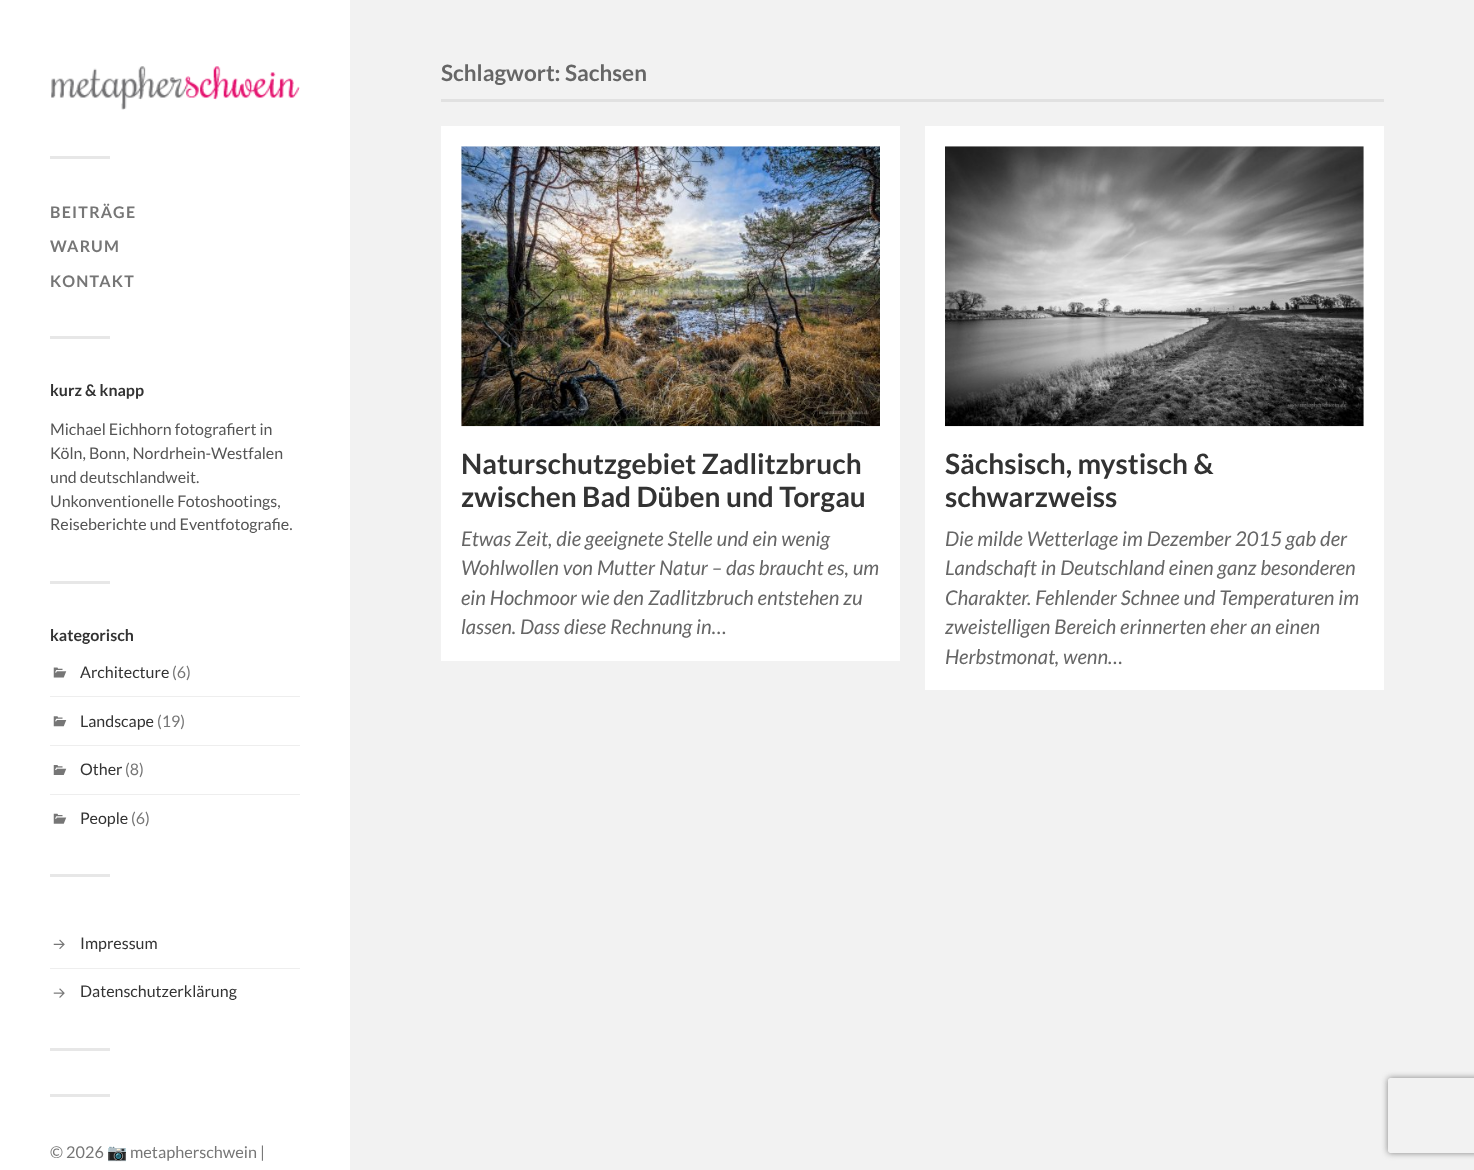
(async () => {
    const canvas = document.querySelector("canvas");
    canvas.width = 1474;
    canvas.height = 1170;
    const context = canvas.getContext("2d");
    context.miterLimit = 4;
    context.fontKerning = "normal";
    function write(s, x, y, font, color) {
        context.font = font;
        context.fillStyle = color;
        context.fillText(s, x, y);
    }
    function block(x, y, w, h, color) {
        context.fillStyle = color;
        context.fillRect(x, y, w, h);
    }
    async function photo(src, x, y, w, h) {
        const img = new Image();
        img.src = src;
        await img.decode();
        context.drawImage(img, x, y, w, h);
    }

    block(0, 0, 1474, 1170, "rgb(242, 242, 242)");
    block(0, 0, 350, 1170, "rgb(255, 255, 255)");
    await photo("media/1.png", 51, 66, 249, 44);
    block(50, 156, 60, 3, "rgb(231, 231, 231)");
    context.letterSpacing = "1.25px";
    write("BEITRÄGE", 50, 218, "bold 16px Lato", "rgb(118, 118, 118)");
    write("WARUM", 50, 252, "bold 16px Lato", "rgb(118, 118, 118)");
    write("KONTAKT", 50, 287, "bold 16px Lato", "rgb(118, 118, 118)");
    block(50, 336, 60, 3, "rgb(231, 231, 231)");
    context.letterSpacing = "0px";
    write("kurz & knapp", 50, 396, "bold 16px Lato", "rgb(51, 51, 51)");
    write("Michael Eichhorn fotografiert in", 50, 435, "16px Lato", "rgb(85, 85, 85)");
    write("Köln, Bonn, Nordrhein-Westfalen", 50, 459, "16px Lato", "rgb(85, 85, 85)");
    write("und deutschlandweit.", 50, 483, "16px Lato", "rgb(85, 85, 85)");
    write("Unkonventionelle Fotoshootings,", 50, 507, "16px Lato", "rgb(85, 85, 85)");
    write("Reiseberichte und Eventfotografie.", 50, 530, "16px Lato", "rgb(85, 85, 85)");
    block(50, 581, 60, 3, "rgb(231, 231, 231)");
    write("kategorisch", 50, 641, "bold 16px Lato", "rgb(51, 51, 51)");
    block(50, 696, 250, 1, "rgb(238, 238, 238)");
    await photo("media/2.png", 53, 667, 14, 11);
    write("Architecture", 80, 678, "16px Lato", "rgb(51, 51, 51)");
    write("(6)", 172, 678, "16px Lato", "rgb(118, 118, 118)");
    block(50, 745, 250, 1, "rgb(238, 238, 238)");
    await photo("media/3.png", 53, 716, 14, 11);
    write("Landscape", 80, 727, "16px Lato", "rgb(51, 51, 51)");
    write("(19)", 157, 727, "16px Lato", "rgb(118, 118, 118)");
    block(50, 794, 250, 1, "rgb(238, 238, 238)");
    await photo("media/4.png", 53, 765, 14, 10);
    write("Other", 80, 775, "16px Lato", "rgb(51, 51, 51)");
    write("(8)", 125, 775, "16px Lato", "rgb(118, 118, 118)");
    await photo("media/5.png", 53, 813, 14, 11);
    write("People", 80, 824, "16px Lato", "rgb(51, 51, 51)");
    write("(6)", 131, 824, "16px Lato", "rgb(118, 118, 118)");
    block(50, 874, 60, 3, "rgb(231, 231, 231)");
    block(50, 968, 250, 1, "rgb(238, 238, 238)");
    await photo("media/6.png", 53, 939, 12, 10);
    write("Impressum", 80, 949, "16px Lato", "rgb(51, 51, 51)");
    await photo("media/7.png", 53, 988, 12, 10);
    write("Datenschutzerklärung", 80, 997, "16px Lato", "rgb(51, 51, 51)");
    block(50, 1048, 60, 3, "rgb(231, 231, 231)");
    block(50, 1094, 60, 3, "rgb(231, 231, 231)");
    write("© 2026", 50, 1158, "16.25px Lato", "rgb(118, 118, 118)");
    write("📷", 107, 1158, "16.25px Noto Color Emoji", "rgb(118, 118, 118)");
    write("metapherschwein |", 130, 1158, "16.25px Lato", "rgb(118, 118, 118)");
    block(441, 99, 943, 3, "rgb(225, 225, 225)");
    write("Schlagwort: Sachsen", 441, 81, "bold 22.5px Lato", "rgb(102, 102, 102)");
    block(441, 126, 459, 535, "rgb(255, 255, 255)");
    await photo("media/8.png", 461, 146, 419, 281);
    write("Naturschutzgebiet Zadlitzbruch", 461, 474, "bold 28.1px Lato", "rgb(51, 51, 51)");
    write("zwischen Bad Düben und Torgau", 461, 507, "bold 28.1px Lato", "rgb(51, 51, 51)");
    write("Etwas Zeit, die geeignete Stelle und ein wenig", 461, 546, "italic 20.25px Lato", "rgb(102, 102, 102)");
    write("Wohlwollen von Mutter Natur – das braucht es, um", 461, 575, "italic 20.25px Lato", "rgb(102, 102, 102)");
    write("ein Hochmoor wie den Zadlitzbruch entstehen zu", 461, 605, "italic 20.25px Lato", "rgb(102, 102, 102)");
    write("lassen. Dass diese Rechnung in…", 461, 634, "italic 20.25px Lato", "rgb(102, 102, 102)");
    block(925, 126, 459, 564, "rgb(255, 255, 255)");
    await photo("media/9.png", 945, 146, 419, 281);
    write("Sächsisch, mystisch &", 945, 474, "bold 28.1px Lato", "rgb(51, 51, 51)");
    write("schwarzweiss", 945, 507, "bold 28.1px Lato", "rgb(51, 51, 51)");
    write("Die milde Wetterlage im Dezember 2015 gab der", 945, 546, "italic 20.25px Lato", "rgb(102, 102, 102)");
    write("Landschaft in Deutschland einen ganz besonderen", 945, 575, "italic 20.25px Lato", "rgb(102, 102, 102)");
    write("Charakter. Fehlender Schnee und Temperaturen im", 945, 605, "italic 20.25px Lato", "rgb(102, 102, 102)");
    write("zweistelligen Bereich erinnerten eher an einen", 945, 634, "italic 20.25px Lato", "rgb(102, 102, 102)");
    write("Herbstmonat, wenn…", 945, 664, "italic 20.25px Lato", "rgb(102, 102, 102)");
    context.save();
    context.beginPath();
    context.moveTo(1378, 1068);
    context.lineTo(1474, 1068);
    context.lineTo(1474, 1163);
    context.lineTo(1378, 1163);
    context.closePath();
    context.moveTo(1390.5, 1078);
    context.lineTo(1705.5, 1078);
    context.bezierCurveTo(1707, 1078, 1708, 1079, 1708, 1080.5);
    context.lineTo(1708, 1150.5);
    context.bezierCurveTo(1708, 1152, 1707, 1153, 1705.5, 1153);
    context.lineTo(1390.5, 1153);
    context.bezierCurveTo(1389, 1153, 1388, 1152, 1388, 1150.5);
    context.lineTo(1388, 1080.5);
    context.bezierCurveTo(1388, 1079, 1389, 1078, 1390.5, 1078);
    context.closePath();
    context.clip("evenodd");
    context.fillStyle = "rgb(128, 128, 128)";
    context.filter = "blur(3px)";
    context.beginPath();
    context.roundRect(1388, 1078, 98, 75, 2.5);
    context.fill();
    context.filter = "none";
    context.restore();
})();
